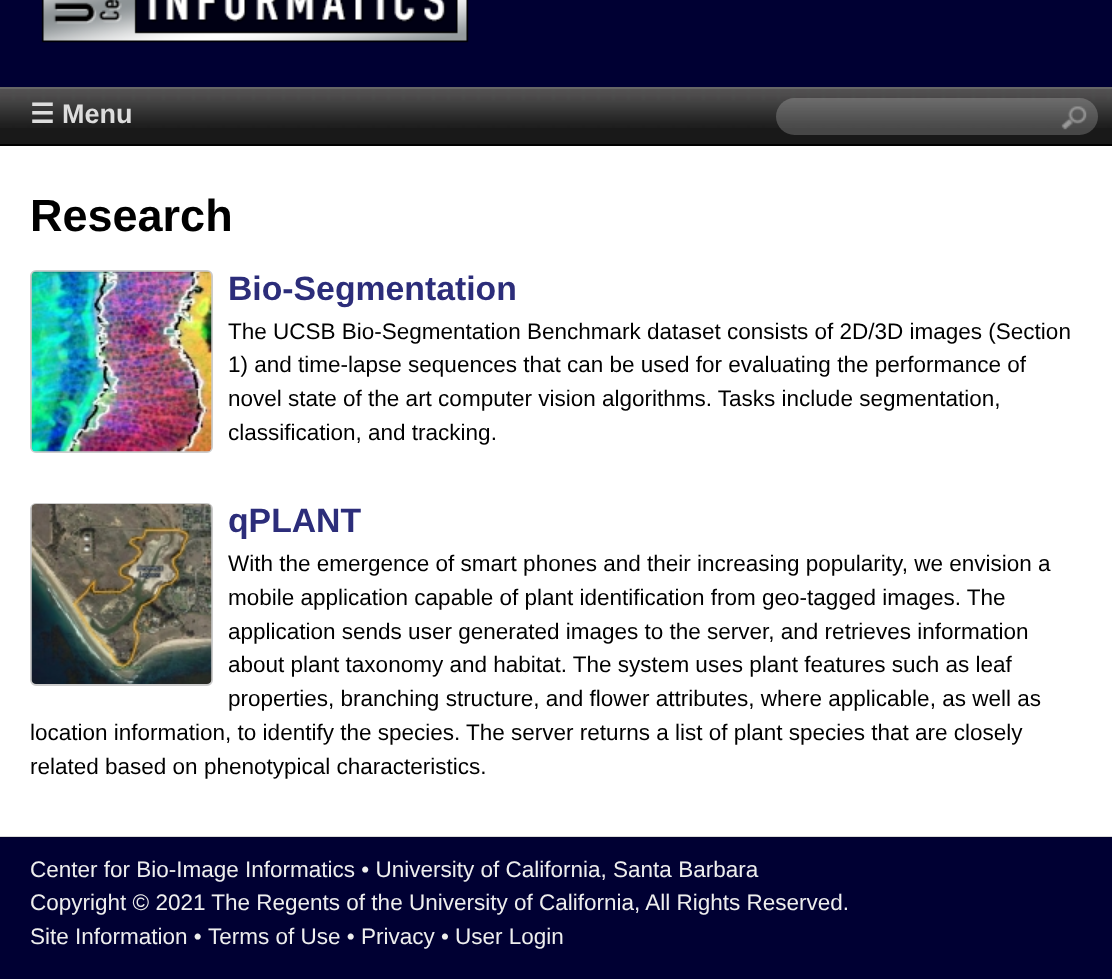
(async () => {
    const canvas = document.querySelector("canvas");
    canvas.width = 1112;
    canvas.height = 979;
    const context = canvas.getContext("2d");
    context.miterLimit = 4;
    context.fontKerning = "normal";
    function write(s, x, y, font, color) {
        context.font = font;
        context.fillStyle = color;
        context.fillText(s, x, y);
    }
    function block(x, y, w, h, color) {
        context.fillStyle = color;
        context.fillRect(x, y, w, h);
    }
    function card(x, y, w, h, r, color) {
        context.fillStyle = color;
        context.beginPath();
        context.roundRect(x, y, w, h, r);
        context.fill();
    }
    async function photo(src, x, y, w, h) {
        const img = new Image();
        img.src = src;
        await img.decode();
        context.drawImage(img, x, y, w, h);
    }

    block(0, 0, 1112, 979, "rgb(0, 0, 51)");
    block(0, 837, 1112, 1, "rgb(0, 0, 44)");
    await photo("media/1.png", 41, 0, 428, 43);
    block(0, 128, 1112, 16, "rgb(25, 25, 25)");
    await photo("media/2.png", 0, 89, 1112, 39);
    block(0, 87, 1112, 2, "rgb(102, 102, 102)");
    block(0, 144, 1112, 2, "rgb(0, 0, 0)");
    write("☰", 30, 123, "bold 27px DejaVu Sans", "rgb(221, 221, 221)");
    write("Menu", 62, 123, "bold 27px Liberation Sans", "rgb(221, 221, 221)");
    card(776, 98, 322, 37, 18.5, "rgba(255, 255, 255, 0.2)");
    await photo("media/3.png", 1061, 106, 26, 24);
    block(0, 146, 1112, 690, "rgb(255, 255, 255)");
    block(0, 836, 1112, 1, "rgb(219, 219, 219)");
    write("Research", 30, 231, "bold 45px Liberation Sans", "rgb(0, 0, 0)");
    context.beginPath();
    context.roundRect(31, 271, 181, 181, 5);
    context.strokeStyle = "rgb(204, 204, 204)";
    context.lineWidth = 2;
    context.stroke();
    await photo("media/4.png", 31, 271, 181, 181);
    write("Bio-Segmentation", 228, 300, "bold 33.75px Liberation Sans", "rgb(44, 45, 122)");
    write("The UCSB Bio-Segmentation Benchmark dataset consists of 2D/3D images (Section", 228, 339, "22.5px Liberation Sans", "rgb(0, 0, 0)");
    write("1) and time-lapse sequences that can be used for evaluating the performance of", 228, 372, "22.5px Liberation Sans", "rgb(0, 0, 0)");
    write("novel state of the art computer vision algorithms. Tasks include segmentation,", 228, 406, "22.5px Liberation Sans", "rgb(0, 0, 0)");
    write("classification, and tracking.", 228, 440, "22.5px Liberation Sans", "rgb(0, 0, 0)");
    context.beginPath();
    context.roundRect(31, 504, 181, 181, 5);
    context.stroke();
    await photo("media/5.png", 31, 504, 181, 180);
    write("qPLANT", 228, 532, "bold 33.75px Liberation Sans", "rgb(44, 45, 122)");
    write("With the emergence of smart phones and their increasing popularity, we envision a", 228, 571, "22.5px Liberation Sans", "rgb(0, 0, 0)");
    write("mobile application capable of plant identification from geo-tagged images. The", 228, 605, "22.5px Liberation Sans", "rgb(0, 0, 0)");
    write("application sends user generated images to the server, and retrieves information", 228, 639, "22.5px Liberation Sans", "rgb(0, 0, 0)");
    write("about plant taxonomy and habitat. The system uses plant features such as leaf", 228, 672, "22.5px Liberation Sans", "rgb(0, 0, 0)");
    write("properties, branching structure, and flower attributes, where applicable, as well as", 228, 706, "22.5px Liberation Sans", "rgb(0, 0, 0)");
    write("location information, to identify the species. The server returns a list of plant species that are closely", 30, 740, "22.5px Liberation Sans", "rgb(0, 0, 0)");
    write("related based on phenotypical characteristics.", 30, 774, "22.5px Liberation Sans", "rgb(0, 0, 0)");
    write("Center for Bio-Image Informatics • University of California, Santa Barbara", 30, 877, "22.5px Liberation Sans", "rgb(238, 238, 238)");
    write("Copyright © 2021 The Regents of the University of California, All Rights Reserved.", 30, 910, "22.5px Liberation Sans", "rgb(238, 238, 238)");
    write("Site Information •", 30, 944, "22.5px Liberation Sans", "rgb(238, 238, 238)");
    write("Terms of Use • Privacy • User Login", 208, 944, "22.5px Liberation Sans", "rgb(238, 238, 238)");
})();
